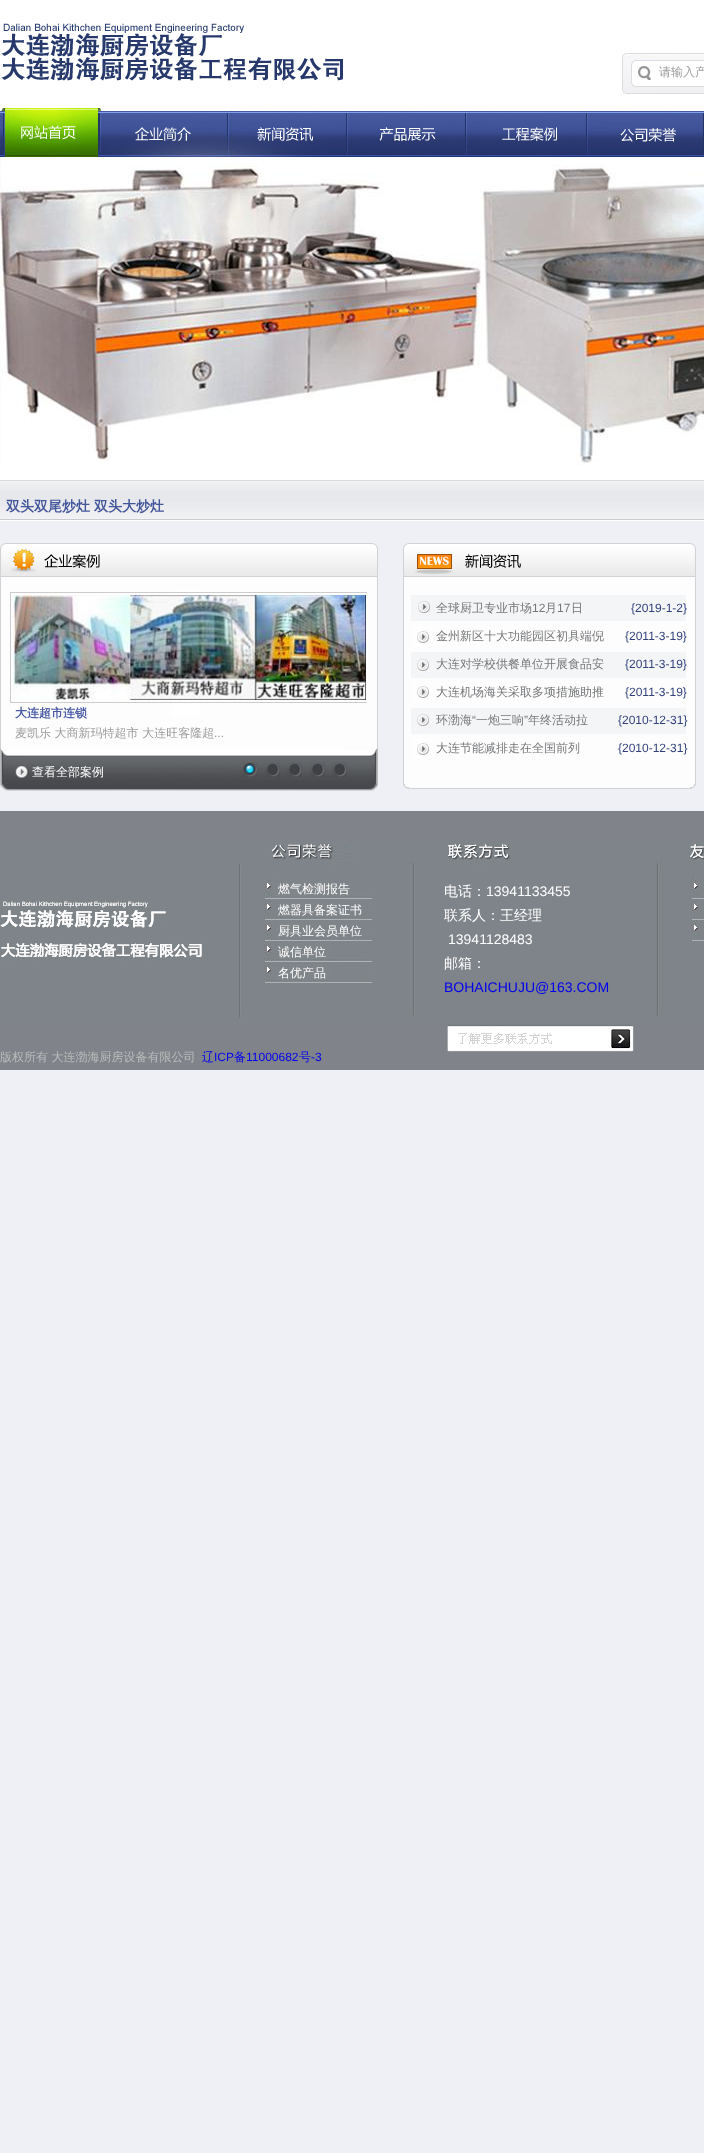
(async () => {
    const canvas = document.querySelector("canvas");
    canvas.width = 704;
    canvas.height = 2153;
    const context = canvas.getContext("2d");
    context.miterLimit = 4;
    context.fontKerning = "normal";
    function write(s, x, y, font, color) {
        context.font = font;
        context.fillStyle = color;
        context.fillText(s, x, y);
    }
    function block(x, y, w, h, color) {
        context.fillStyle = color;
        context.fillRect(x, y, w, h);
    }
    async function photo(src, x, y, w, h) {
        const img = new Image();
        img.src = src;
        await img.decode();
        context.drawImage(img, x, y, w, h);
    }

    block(0, 0, 704, 2153, "rgb(238, 240, 246)");
    await photo("media/1.png", 0, 0, 704, 521);
    await photo("media/2.png", 1, 23, 343, 58);
    await photo("media/3.png", 620, 51, 84, 43);
    block(656, 63, 48, 3, "rgb(255, 255, 255)");
    write("请输入产", 659, 76, "500 12px WenQuanYi Zen Hei", "rgb(156, 156, 156)");
    await photo("media/4.png", 0, 108, 101, 49);
    await photo("media/5.png", 101, 112, 129, 45);
    await photo("media/6.png", 230, 110, 118, 47);
    await photo("media/7.png", 349, 110, 119, 47);
    await photo("media/8.png", 468, 110, 121, 47);
    await photo("media/9.png", 589, 110, 115, 47);
    await photo("media/10.png", 0, 157, 704, 309);
    write("双头双尾炒灶", 6, 511, "bold 14px WenQuanYi Zen Hei", "rgb(67, 86, 154)");
    write("双头大炒灶", 94, 511, "bold 14px WenQuanYi Zen Hei", "rgb(67, 86, 154)");
    await photo("media/11.png", 0, 543, 378, 248);
    context.save();
    context.beginPath();
    context.rect(10, 592, 357, 195);
    context.clip();
    context.strokeStyle = "rgb(204, 204, 204)";
    context.strokeRect(10.5, 592.5, 358, 110);
    context.restore();
    await photo("media/12.png", 13, 595, 353, 105);
    write("大连超市连锁", 15, 717, "bold 12px WenQuanYi Zen Hei", "rgb(73, 89, 164)");
    write("麦凯乐 大商新玛特超市 大连旺客隆超", 15, 737, "500 12px WenQuanYi Zen Hei", "rgb(156, 156, 156)");
    write("...", 214, 737, "12px Liberation Sans", "rgb(156, 156, 156)");
    await photo("media/13.png", 243, 762, 15, 15);
    await photo("media/14.png", 265, 762, 15, 15);
    await photo("media/14.png", 287, 762, 15, 15);
    await photo("media/14.png", 310, 762, 15, 15);
    await photo("media/14.png", 332, 762, 15, 15);
    write("查看全部案例", 32, 776, "500 12px WenQuanYi Zen Hei", "rgb(255, 255, 255)");
    await photo("media/15.png", 403, 543, 293, 246);
    write("全球厨卫专业市场", 436, 612, "500 12px WenQuanYi Zen Hei", "rgb(118, 119, 121)");
    write("12", 532, 612, "12px Liberation Sans", "rgb(118, 119, 121)");
    write("月", 545, 612, "500 12px WenQuanYi Zen Hei", "rgb(118, 119, 121)");
    write("17", 557, 612, "12px Liberation Sans", "rgb(118, 119, 121)");
    write("日", 571, 612, "500 12px WenQuanYi Zen Hei", "rgb(118, 119, 121)");
    write("{2019-1-2}", 631, 612, "12px Liberation Sans", "rgb(51, 66, 125)");
    write("金州新区十大功能园区初具端倪", 436, 640, "500 12px WenQuanYi Zen Hei", "rgb(118, 119, 121)");
    write("{2011-3-19}", 625, 640, "12px Liberation Sans", "rgb(51, 66, 125)");
    write("大连对学校供餐单位开展食品安", 436, 668, "500 12px WenQuanYi Zen Hei", "rgb(118, 119, 121)");
    write("{2011-3-19}", 625, 668, "12px Liberation Sans", "rgb(51, 66, 125)");
    write("大连机场海关采取多项措施助推", 436, 696, "500 12px WenQuanYi Zen Hei", "rgb(118, 119, 121)");
    write("{2011-3-19}", 625, 696, "12px Liberation Sans", "rgb(51, 66, 125)");
    write("环渤海", 436, 724, "500 12px WenQuanYi Zen Hei", "rgb(118, 119, 121)");
    write("“", 472, 724, "12px Liberation Sans", "rgb(118, 119, 121)");
    write("一炮三响", 476, 724, "500 12px WenQuanYi Zen Hei", "rgb(118, 119, 121)");
    write("”", 524, 724, "12px Liberation Sans", "rgb(118, 119, 121)");
    write("年终活动拉", 528, 724, "500 12px WenQuanYi Zen Hei", "rgb(118, 119, 121)");
    write("{2010-12-31}", 618, 724, "12px Liberation Sans", "rgb(51, 66, 125)");
    write("大连节能减排走在全国前列", 436, 752, "500 12px WenQuanYi Zen Hei", "rgb(118, 119, 121)");
    write("{2010-12-31}", 618, 752, "12px Liberation Sans", "rgb(51, 66, 125)");
    block(0, 811, 704, 259, "rgb(128, 132, 138)");
    await photo("media/16.png", 0, 841, 704, 177);
    await photo("media/17.png", 264, 879, 108, 21);
    write("燃气检测报告", 278, 893, "500 12px WenQuanYi Zen Hei", "rgb(255, 255, 255)");
    await photo("media/17.png", 264, 900, 108, 21);
    write("燃器具备案证书", 278, 914, "500 12px WenQuanYi Zen Hei", "rgb(255, 255, 255)");
    await photo("media/17.png", 264, 921, 108, 21);
    write("厨具业会员单位", 278, 935, "500 12px WenQuanYi Zen Hei", "rgb(255, 255, 255)");
    await photo("media/17.png", 264, 942, 108, 21);
    write("诚信单位", 278, 956, "500 12px WenQuanYi Zen Hei", "rgb(255, 255, 255)");
    await photo("media/17.png", 264, 963, 108, 21);
    write("名优产品", 278, 977, "500 12px WenQuanYi Zen Hei", "rgb(255, 255, 255)");
    write("电话：", 444, 896, "500 14px WenQuanYi Zen Hei", "rgb(255, 255, 255)");
    write("13941133455", 486, 896, "14px Liberation Sans", "rgb(255, 255, 255)");
    write("联系人：王经理", 444, 920, "500 14px WenQuanYi Zen Hei", "rgb(255, 255, 255)");
    write("13941128483", 448, 944, "14px Liberation Sans", "rgb(255, 255, 255)");
    write("邮箱：", 444, 968, "500 14px WenQuanYi Zen Hei", "rgb(255, 255, 255)");
    write("BOHAICHUJU@163.COM", 444, 992, "14px Liberation Sans", "rgb(0, 0, 238)");
    await photo("media/18.png", 447, 1024, 188, 28);
    await photo("media/19.png", 691, 879, 13, 21);
    await photo("media/19.png", 691, 900, 13, 21);
    await photo("media/19.png", 691, 921, 13, 21);
    write("版权所有 大连渤海厨房设备有限公司", 0, 1061, "500 12px WenQuanYi Zen Hei", "rgb(187, 187, 187)");
    write("辽", 202, 1061, "500 12px WenQuanYi Zen Hei", "rgb(0, 0, 238)");
    write("ICP", 214, 1061, "12px Liberation Sans", "rgb(0, 0, 238)");
    write("备", 234, 1061, "500 12px WenQuanYi Zen Hei", "rgb(0, 0, 238)");
    write("11000682", 246, 1061, "12px Liberation Sans", "rgb(0, 0, 238)");
    write("号", 299, 1061, "500 12px WenQuanYi Zen Hei", "rgb(0, 0, 238)");
    write("-3", 311, 1061, "12px Liberation Sans", "rgb(0, 0, 238)");
})();
